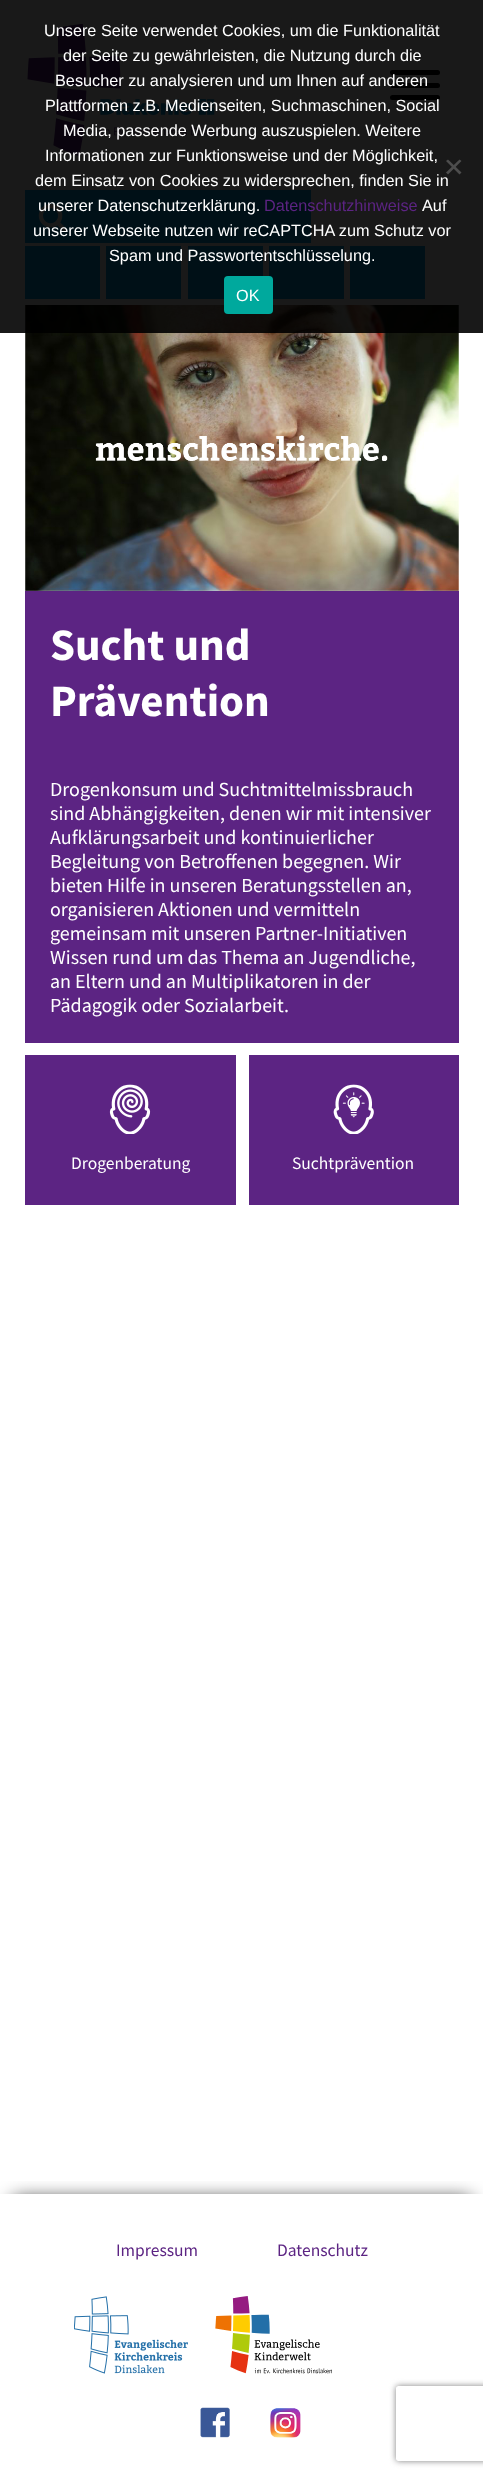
(async () => {
    const canvas = document.querySelector("canvas");
    canvas.width = 483;
    canvas.height = 2478;
    const context = canvas.getContext("2d");
    context.miterLimit = 4;
    context.fontKerning = "normal";
    function write(s, x, y, font, color) {
        context.font = font;
        context.fillStyle = color;
        context.fillText(s, x, y);
    }
    function block(x, y, w, h, color) {
        context.fillStyle = color;
        context.fillRect(x, y, w, h);
    }
    function card(x, y, w, h, r, color) {
        context.fillStyle = color;
        context.beginPath();
        context.roundRect(x, y, w, h, r);
        context.fill();
    }
    async function photo(src, x, y, w, h) {
        const img = new Image();
        img.src = src;
        await img.decode();
        context.drawImage(img, x, y, w, h);
    }

    block(0, 0, 483, 2478, "rgb(255, 255, 255)");
    await photo("media/1.png", 27, 23, 209, 134);
    card(390, 95, 50, 5, 2.5, "rgb(0, 0, 0)");
    card(390, 70, 50, 5, 2.5, "rgb(0, 0, 0)");
    card(390, 83, 50, 5, 2.5, "rgb(0, 0, 0)");
    block(25, 190, 286, 53, "rgb(0, 159, 227)");
    await photo("media/2.png", 38, 203, 29, 29);
    block(25, 246, 75, 53, "rgb(0, 159, 227)");
    block(106, 246, 75, 53, "rgb(0, 159, 227)");
    block(188, 246, 75, 53, "rgb(0, 159, 227)");
    block(269, 246, 75, 53, "rgb(0, 159, 227)");
    block(350, 246, 75, 53, "rgb(0, 159, 227)");
    await photo("media/3.png", 25, 305, 434, 286);
    block(0, 0, 483, 333, "rgba(0, 0, 0, 0.9)");
    write("Unsere Seite verwendet Cookies, um die Funktionalität", 44, 36, "16.25px Liberation Sans", "rgb(255, 255, 255)");
    write("der Seite zu gewährleisten, die Nutzung durch die", 63, 61, "16.25px Liberation Sans", "rgb(255, 255, 255)");
    write("Besucher zu analysieren und um Ihnen auf anderen", 55, 86, "16.25px Liberation Sans", "rgb(255, 255, 255)");
    write("Plattformen z.B. Medienseiten, Suchmaschinen, Social", 45, 111, "16.25px Liberation Sans", "rgb(255, 255, 255)");
    write("Media, passende Werbung auszuspielen. Weitere", 63, 136, "16.25px Liberation Sans", "rgb(255, 255, 255)");
    write("Informationen zur Funktionsweise und der Möglichkeit,", 45, 161, "16.25px Liberation Sans", "rgb(255, 255, 255)");
    write("dem Einsatz von Cookies zu widersprechen, finden Sie in", 35, 186, "16.25px Liberation Sans", "rgb(255, 255, 255)");
    write("unserer Datenschutzerklärung.", 38, 211, "16.25px Liberation Sans", "rgb(255, 255, 255)");
    write("Datenschutzhinweise", 264, 211, "16.25px Liberation Sans", "rgb(92, 36, 131)");
    write("Auf", 422, 211, "16.25px Liberation Sans", "rgb(255, 255, 255)");
    write("unserer Webseite nutzen wir reCAPTCHA zum Schutz vor", 33, 236, "16.25px Liberation Sans", "rgb(255, 255, 255)");
    write("Spam und Passwortentschlüsselung.", 109, 261, "16.25px Liberation Sans", "rgb(255, 255, 255)");
    context.fillStyle = "rgb(77, 77, 77)";
    context.beginPath();
    context.moveTo(459.5, 159.5);
    context.lineTo(461.5, 161);
    context.lineTo(448, 174.5);
    context.lineTo(446, 172.5);
    context.closePath();
    context.fill();
    context.beginPath();
    context.moveTo(446, 161);
    context.lineTo(448, 159.5);
    context.lineTo(461.5, 172.5);
    context.lineTo(459.5, 174.5);
    context.closePath();
    context.fill();
    card(224, 276, 49, 38, 4, "rgb(0, 169, 157)");
    write("OK", 236, 301, "16.25px Liberation Sans", "rgb(255, 255, 255)");
    block(25, 591, 434, 452, "rgb(92, 36, 131)");
    write("Sucht und", 50, 660, "bold 45px Source Sans Pro", "rgb(255, 255, 255)");
    write("Prävention", 50, 716, "bold 45px Source Sans Pro", "rgb(255, 255, 255)");
    write("Drogenkonsum und Suchtmittelmissbrauch", 50, 796, "20px Source Sans Pro", "rgb(255, 255, 255)");
    write("sind Abhängigkeiten, denen wir mit intensiver", 50, 820, "20px Source Sans Pro", "rgb(255, 255, 255)");
    write("Aufklärungsarbeit und kontinuierlicher", 50, 844, "20px Source Sans Pro", "rgb(255, 255, 255)");
    write("Begleitung von Betroffenen begegnen. Wir", 50, 868, "20px Source Sans Pro", "rgb(255, 255, 255)");
    write("bieten Hilfe in unseren Beratungsstellen an,", 50, 892, "20px Source Sans Pro", "rgb(255, 255, 255)");
    write("organisieren Aktionen und vermitteln", 50, 916, "20px Source Sans Pro", "rgb(255, 255, 255)");
    write("gemeinsam mit unseren Partner-Initiativen", 50, 940, "20px Source Sans Pro", "rgb(255, 255, 255)");
    write("Wissen rund um das Thema an Jugendliche,", 50, 964, "20px Source Sans Pro", "rgb(255, 255, 255)");
    write("an Eltern und an Multiplikatoren in der", 50, 988, "20px Source Sans Pro", "rgb(255, 255, 255)");
    write("Pädagogik oder Sozialarbeit.", 50, 1012, "20px Source Sans Pro", "rgb(255, 255, 255)");
    block(25, 1055, 211, 150, "rgb(92, 36, 131)");
    await photo("media/4.png", 109, 1084, 42, 50);
    write("Drogenberatung", 71, 1169, "17.5px Source Sans Pro", "rgb(255, 255, 255)");
    block(249, 1055, 210, 150, "rgb(92, 36, 131)");
    await photo("media/5.png", 333, 1084, 41, 50);
    write("Suchtprävention", 292, 1169, "17.5px Source Sans Pro", "rgb(255, 255, 255)");
    context.save();
    context.beginPath();
    context.rect(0, 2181, 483, 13);
    context.clip();
    context.fillStyle = "rgb(0, 0, 0)";
    context.filter = "blur(9.5px)";
    context.beginPath();
    context.rect(13, 2200, 458, 260);
    context.fill();
    context.filter = "none";
    context.restore();
    write("Impressum", 116, 2256, "17.5px Source Sans Pro", "rgb(92, 36, 131)");
    write("Datenschutz", 277, 2256, "17.5px Source Sans Pro", "rgb(92, 36, 131)");
    await photo("media/6.png", 74, 2296, 114, 78);
    await photo("media/7.png", 215, 2296, 117, 78);
    await photo("media/8.png", 200, 2407, 30, 31);
    await photo("media/9.png", 270, 2408, 31, 30);
    context.save();
    context.beginPath();
    context.moveTo(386, 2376);
    context.lineTo(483, 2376);
    context.lineTo(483, 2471);
    context.lineTo(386, 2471);
    context.closePath();
    context.moveTo(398.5, 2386);
    context.lineTo(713.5, 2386);
    context.bezierCurveTo(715, 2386, 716, 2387, 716, 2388.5);
    context.lineTo(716, 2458.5);
    context.bezierCurveTo(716, 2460, 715, 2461, 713.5, 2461);
    context.lineTo(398.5, 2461);
    context.bezierCurveTo(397, 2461, 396, 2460, 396, 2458.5);
    context.lineTo(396, 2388.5);
    context.bezierCurveTo(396, 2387, 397, 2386, 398.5, 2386);
    context.closePath();
    context.clip("evenodd");
    context.fillStyle = "rgb(128, 128, 128)";
    context.filter = "blur(3px)";
    context.beginPath();
    context.roundRect(396, 2386, 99, 75, 2.5);
    context.fill();
    context.filter = "none";
    context.restore();
})();
